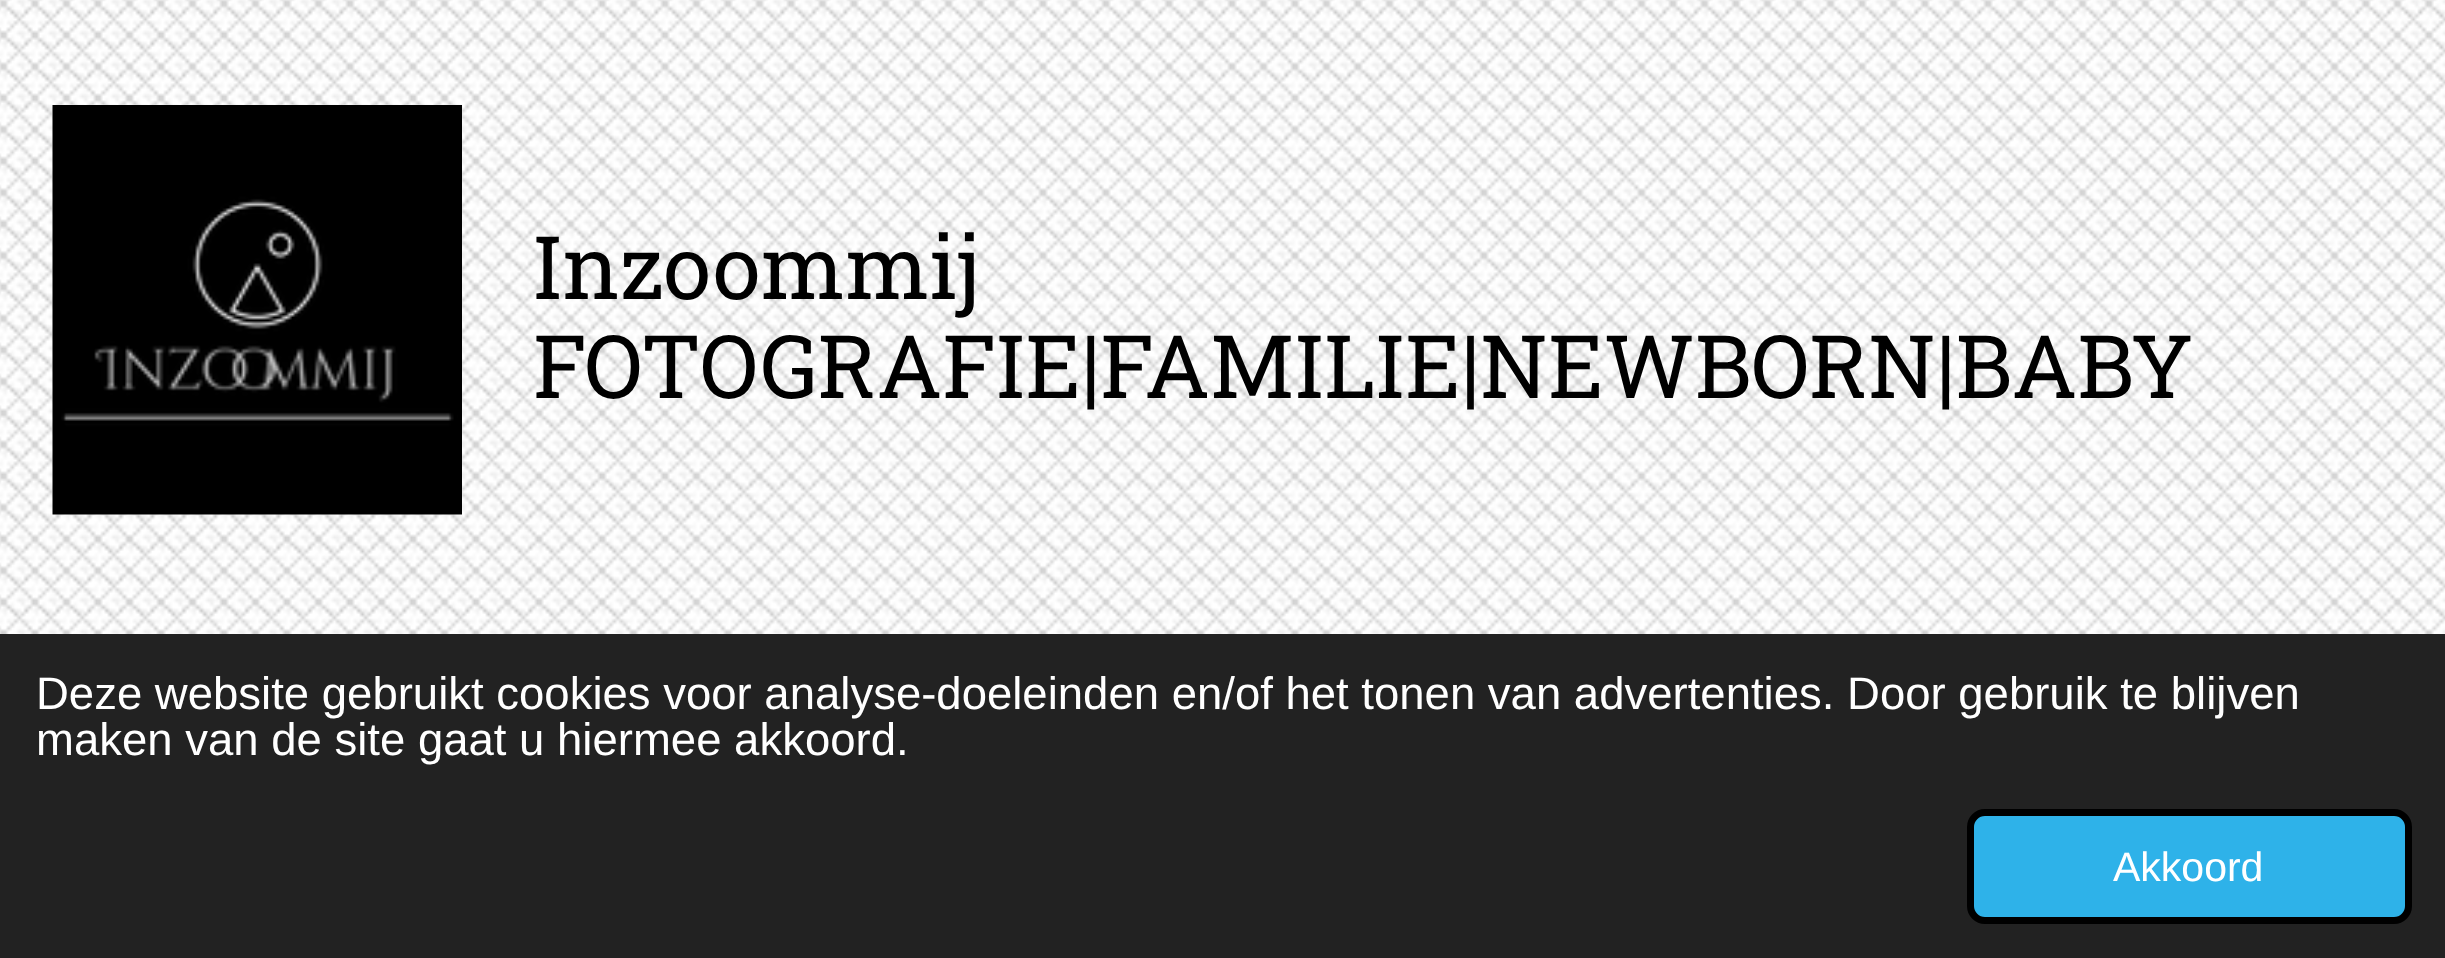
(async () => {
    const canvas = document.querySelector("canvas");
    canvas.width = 2445;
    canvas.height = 958;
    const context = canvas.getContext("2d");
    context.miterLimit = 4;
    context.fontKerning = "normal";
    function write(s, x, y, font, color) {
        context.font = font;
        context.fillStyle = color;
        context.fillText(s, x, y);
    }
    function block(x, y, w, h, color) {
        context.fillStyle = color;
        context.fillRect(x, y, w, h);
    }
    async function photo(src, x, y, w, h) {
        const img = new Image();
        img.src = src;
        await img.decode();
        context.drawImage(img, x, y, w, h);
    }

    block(0, 0, 2445, 958, "rgb(255, 255, 255)");
    await photo("media/1.png", 0, 0, 2445, 634);
    await photo("media/2.png", 52, 105, 410, 410);
    write("Inzoommij", 533, 299, "87.5px Roboto Slab", "rgb(0, 0, 0)");
    write("FOTOGRAFIE|FAMILIE|NEWBORN|BABY", 533, 398, "87.5px Roboto Slab", "rgb(0, 0, 0)");
    block(0, 634, 2445, 324, "rgb(34, 34, 34)");
    write("Deze website gebruikt cookies voor analyse-doeleinden en/of het tonen van advertenties. Door gebruik te blijven", 36, 709, "45.5px Liberation Sans", "rgb(255, 255, 255)");
    write("maken van de site gaat u hiermee akkoord.", 36, 755, "45.5px Liberation Sans", "rgb(255, 255, 255)");
    context.fillStyle = "rgb(46, 178, 233)";
    context.beginPath();
    context.roundRect(1970.5, 812.5, 438, 108, 14.5);
    context.fill();
    context.strokeStyle = "rgb(0, 0, 0)";
    context.lineWidth = 7;
    context.stroke();
    write("Akkoord", 2113, 881, "41px Liberation Sans", "rgb(255, 255, 255)");
})();
